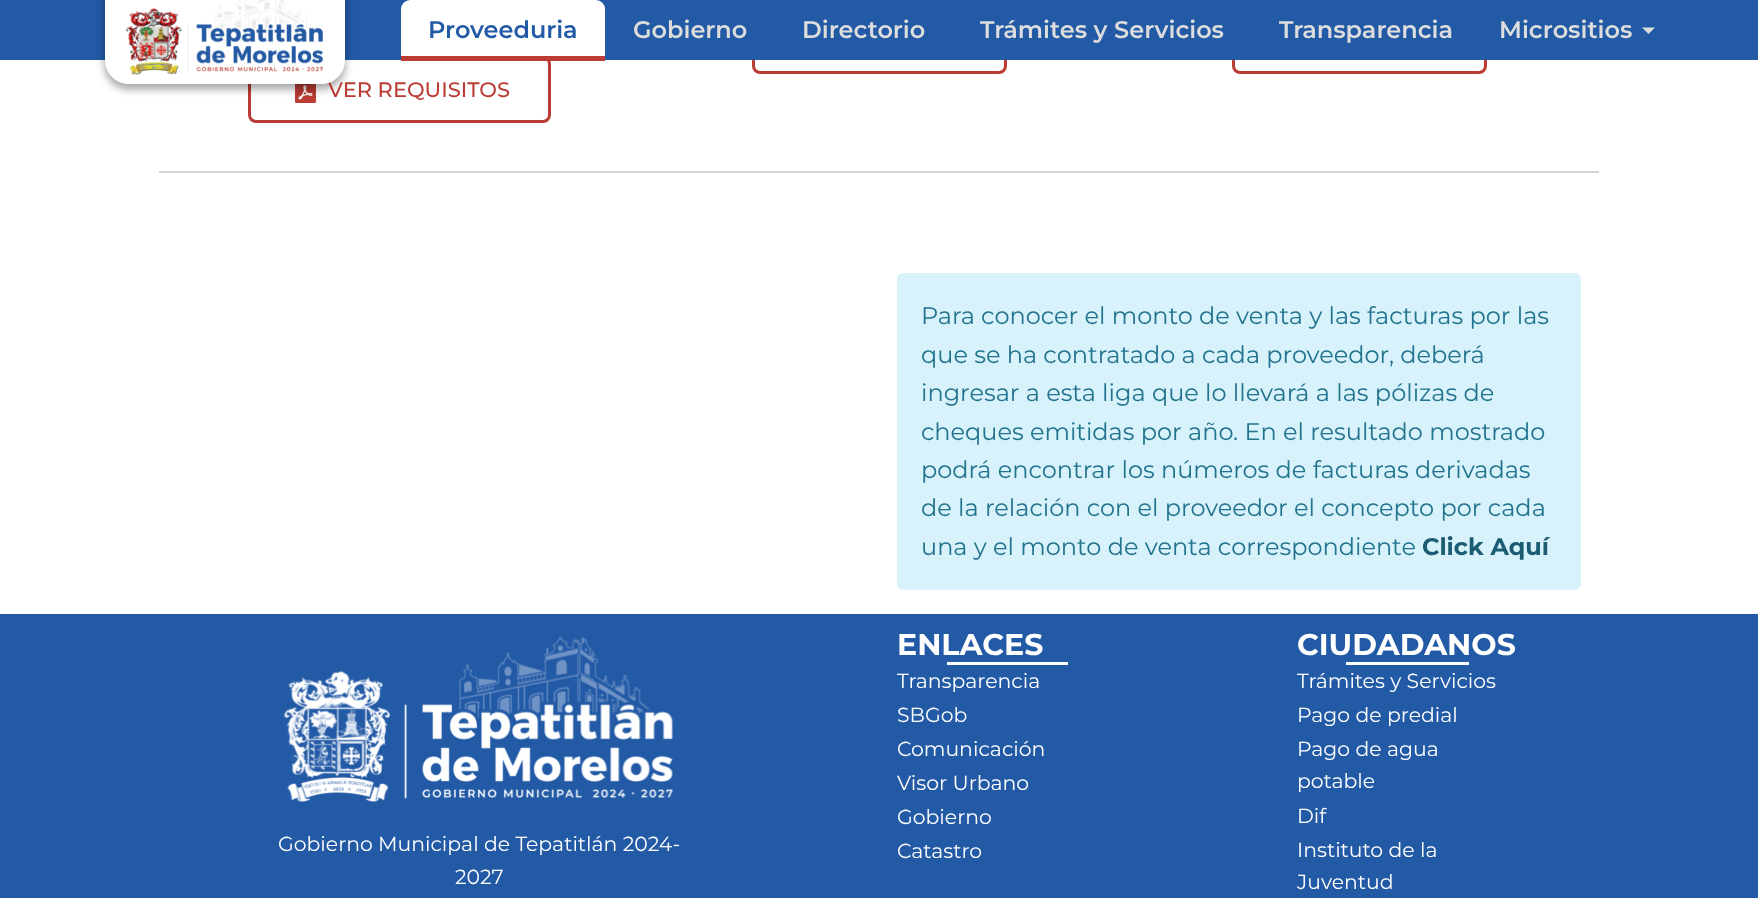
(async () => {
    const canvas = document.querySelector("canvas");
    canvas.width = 1758;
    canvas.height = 898;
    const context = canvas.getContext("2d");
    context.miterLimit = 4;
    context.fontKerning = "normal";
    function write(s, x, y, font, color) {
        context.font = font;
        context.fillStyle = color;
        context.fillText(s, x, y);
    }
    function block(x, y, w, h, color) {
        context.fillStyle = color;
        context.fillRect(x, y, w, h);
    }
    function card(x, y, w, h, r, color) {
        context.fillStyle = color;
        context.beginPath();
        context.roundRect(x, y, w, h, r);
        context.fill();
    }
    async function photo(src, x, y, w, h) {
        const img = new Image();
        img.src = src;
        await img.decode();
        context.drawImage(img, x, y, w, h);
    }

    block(0, 0, 1758, 898, "rgb(255, 255, 255)");
    context.beginPath();
    context.roundRect(753.5, 6.5, 252, 66, 6.5);
    context.strokeStyle = "rgb(186, 60, 53)";
    context.lineWidth = 3;
    context.stroke();
    context.beginPath();
    context.roundRect(1233.5, 6.5, 252, 66, 6.5);
    context.stroke();
    context.beginPath();
    context.roundRect(249.5, 57.5, 300, 64, 6.5);
    context.stroke();
    block(0, 0, 1758, 60, "rgb(35, 90, 166)");
    await photo("media/2.png", 295, 84, 21, 19);
    context.fillStyle = "rgba(0, 0, 0, 0.23)";
    context.filter = "blur(4.5px)";
    context.beginPath();
    context.roundRect(105, -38, 240, 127, 24);
    context.fill();
    context.filter = "none";
    context.fillStyle = "rgba(0, 0, 0, 0.16)";
    context.filter = "blur(4.5px)";
    context.beginPath();
    context.roundRect(105, -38, 240, 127, 24);
    context.fill();
    context.filter = "none";
    write("VER REQUISITOS", 328, 97, "500 21px Montserrat", "rgb(186, 60, 53)");
    context.fillStyle = "rgb(255, 255, 255)";
    context.beginPath();
    context.moveTo(105, -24);
    context.lineTo(345, -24);
    context.lineTo(345, 60);
    context.bezierCurveTo(345, 73.5, 334.5, 84, 321, 84);
    context.lineTo(129, 84);
    context.bezierCurveTo(115.5, 84, 105, 73.5, 105, 60);
    context.closePath();
    context.fill();
    await photo("media/1.png", 125, 0, 198, 75);
    context.beginPath();
    context.roundRect(401, 0, 204, 60, [9, 9, 0, 0]);
    context.fill();
    block(401, 56, 204, 5, "rgb(186, 60, 53)");
    write("Proveeduria", 428, 38, "600 24px Montserrat", "rgb(35, 90, 166)");
    write("Gobierno", 633, 38, "600 24px Montserrat", "rgb(221, 221, 221)");
    write("Directorio", 802, 38, "600 24px Montserrat", "rgb(221, 221, 221)");
    write("Trámites y Servicios", 980, 38, "600 24px Montserrat", "rgb(221, 221, 221)");
    write("Transparencia", 1279, 38, "600 24px Montserrat", "rgb(221, 221, 221)");
    write("Micrositios", 1499, 38, "600 24px Montserrat", "rgb(221, 221, 221)");
    context.beginPath();
    context.moveTo(1648.5, 34);
    context.lineTo(1642, 27.5);
    context.lineTo(1655, 27.5);
    context.closePath();
    context.fill();
    block(159, 171, 1440, 2, "rgb(211, 211, 211)");
    card(897, 273, 684, 317, 6, "rgb(215, 242, 251)");
    write("Para conocer el monto de venta y las facturas por las", 921, 324, "24px Montserrat", "rgb(34, 115, 142)");
    write("que se ha contratado a cada proveedor, deberá", 921, 363, "24px Montserrat", "rgb(34, 115, 142)");
    write("ingresar a esta liga que lo llevará a las pólizas de", 921, 401, "24px Montserrat", "rgb(34, 115, 142)");
    write("cheques emitidas por año. En el resultado mostrado", 921, 440, "24px Montserrat", "rgb(34, 115, 142)");
    write("podrá encontrar los números de facturas derivadas", 921, 478, "24px Montserrat", "rgb(34, 115, 142)");
    write("de la relación con el proveedor el concepto por cada", 921, 516, "24px Montserrat", "rgb(34, 115, 142)");
    write("una y el monto de venta correspondiente", 921, 555, "24px Montserrat", "rgb(34, 115, 142)");
    write("Click Aquí", 1422, 555, "bold 24px Montserrat", "rgb(27, 92, 114)");
    block(0, 614, 1758, 284, "rgb(35, 90, 166)");
    await photo("media/3.png", 283, 636, 391, 166);
    write("Gobierno Municipal de Tepatitlán 2024-", 278, 851, "20.4px Montserrat", "rgb(255, 255, 255)");
    write("2027", 455, 884, "20.4px Montserrat", "rgb(255, 255, 255)");
    write("ENLACES", 897, 655, "bold 30px Montserrat", "rgb(255, 255, 255)");
    block(947, 662, 121, 3, "rgb(255, 255, 255)");
    write("Transparencia", 897, 688, "20.4px Montserrat", "rgb(255, 255, 255)");
    write("SBGob", 897, 722, "20.4px Montserrat", "rgb(255, 255, 255)");
    write("Comunicación", 897, 756, "20.4px Montserrat", "rgb(255, 255, 255)");
    write("Visor Urbano", 897, 790, "20.4px Montserrat", "rgb(255, 255, 255)");
    write("Gobierno", 897, 824, "20.4px Montserrat", "rgb(255, 255, 255)");
    write("Catastro", 897, 858, "20.4px Montserrat", "rgb(255, 255, 255)");
    write("CIUDADANOS", 1297, 655, "bold 30px Montserrat", "rgb(255, 255, 255)");
    block(1346, 662, 123, 3, "rgb(255, 255, 255)");
    write("Trámites y Servicios", 1297, 688, "20.4px Montserrat", "rgb(255, 255, 255)");
    write("Pago de predial", 1297, 722, "20.4px Montserrat", "rgb(255, 255, 255)");
    write("Pago de agua", 1297, 756, "20.4px Montserrat", "rgb(255, 255, 255)");
    write("potable", 1297, 788, "20.4px Montserrat", "rgb(255, 255, 255)");
    write("Dif", 1297, 823, "20.4px Montserrat", "rgb(255, 255, 255)");
    write("Instituto de la", 1297, 857, "20.4px Montserrat", "rgb(255, 255, 255)");
    write("Juventud", 1297, 889, "20.4px Montserrat", "rgb(255, 255, 255)");
})();
